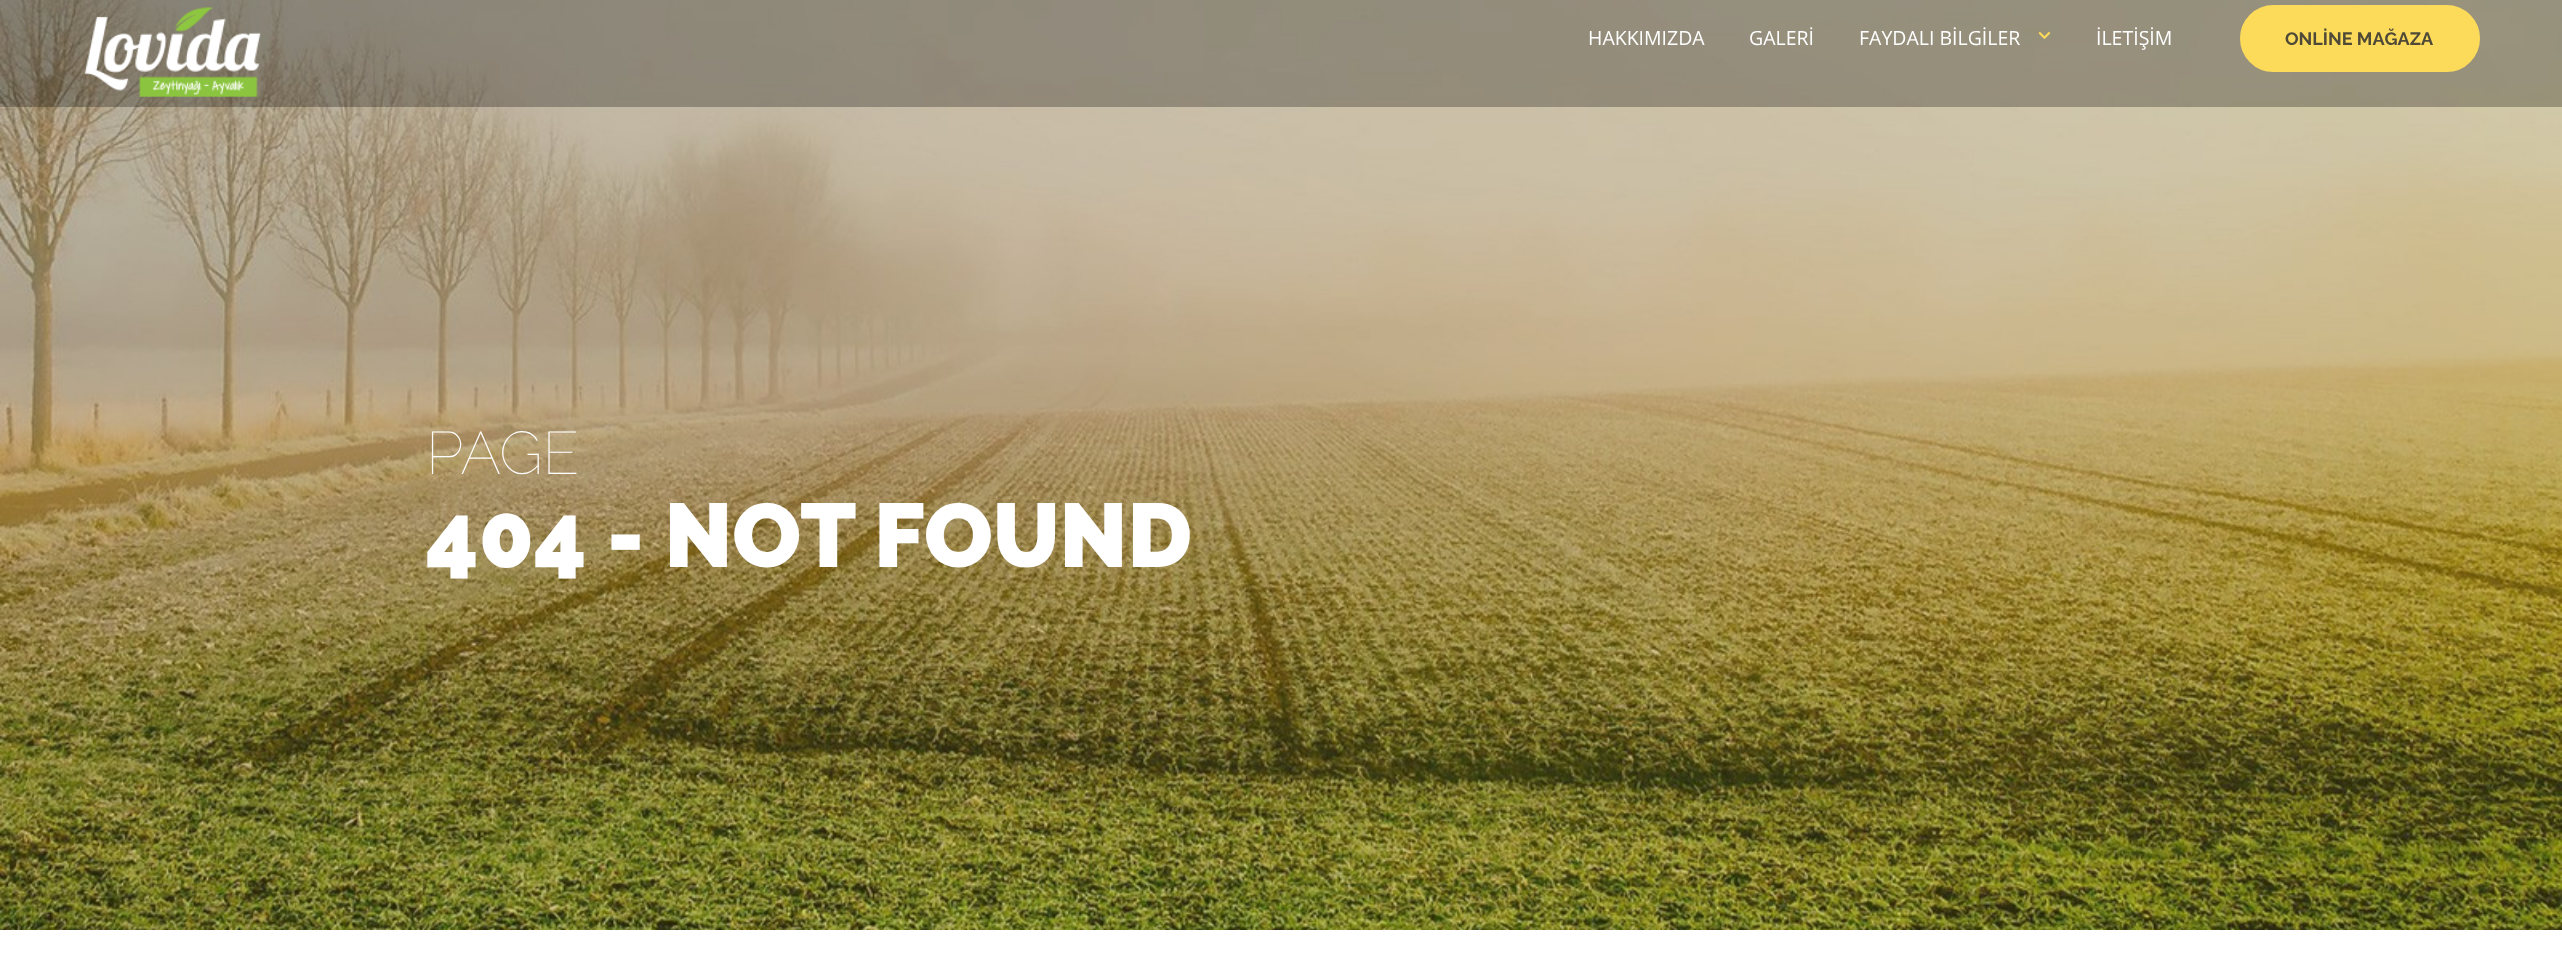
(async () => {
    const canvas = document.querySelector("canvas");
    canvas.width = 2562;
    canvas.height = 968;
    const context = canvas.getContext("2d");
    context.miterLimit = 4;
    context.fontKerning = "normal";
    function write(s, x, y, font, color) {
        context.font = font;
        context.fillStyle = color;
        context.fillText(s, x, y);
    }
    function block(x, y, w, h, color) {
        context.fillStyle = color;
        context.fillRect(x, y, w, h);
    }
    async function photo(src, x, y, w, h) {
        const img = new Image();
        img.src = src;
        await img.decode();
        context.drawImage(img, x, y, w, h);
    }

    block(0, 0, 2562, 968, "rgb(255, 255, 255)");
    await photo("media/3.png", 0, 0, 2562, 930);
    block(0, 0, 2562, 107, "rgba(0, 0, 0, 0.27)");
    await photo("media/1.png", 84, 7, 177, 90);
    write("HAKKIMIZDA", 1588, 45, "19.5px Open Sans", "rgb(255, 255, 255)");
    write("GALERİ", 1749, 45, "19.5px Open Sans", "rgb(255, 255, 255)");
    write("FAYDALI BİLGİLER", 1859, 45, "19.5px Open Sans", "rgb(255, 255, 255)");
    await photo("media/2.png", 2038, 32, 13, 7);
    write("İLETİŞİM", 2096, 45, "19.5px Open Sans", "rgb(255, 255, 255)");
    context.fillStyle = "rgb(252, 219, 90)";
    context.beginPath();
    context.roundRect(2241.5, 6.5, 237, 64, 32);
    context.fill();
    context.strokeStyle = "rgb(252, 219, 90)";
    context.lineWidth = 3;
    context.stroke();
    write("ONLİNE MAĞAZA", 2285, 45, "bold 18px Raleway", "rgb(79, 74, 55)");
    write("PAGE", 426, 474, "100 60px Raleway", "rgb(255, 255, 255)");
    write("404 - NOT FOUND", 426, 567, "900 90px Raleway", "rgb(255, 255, 255)");
})();
